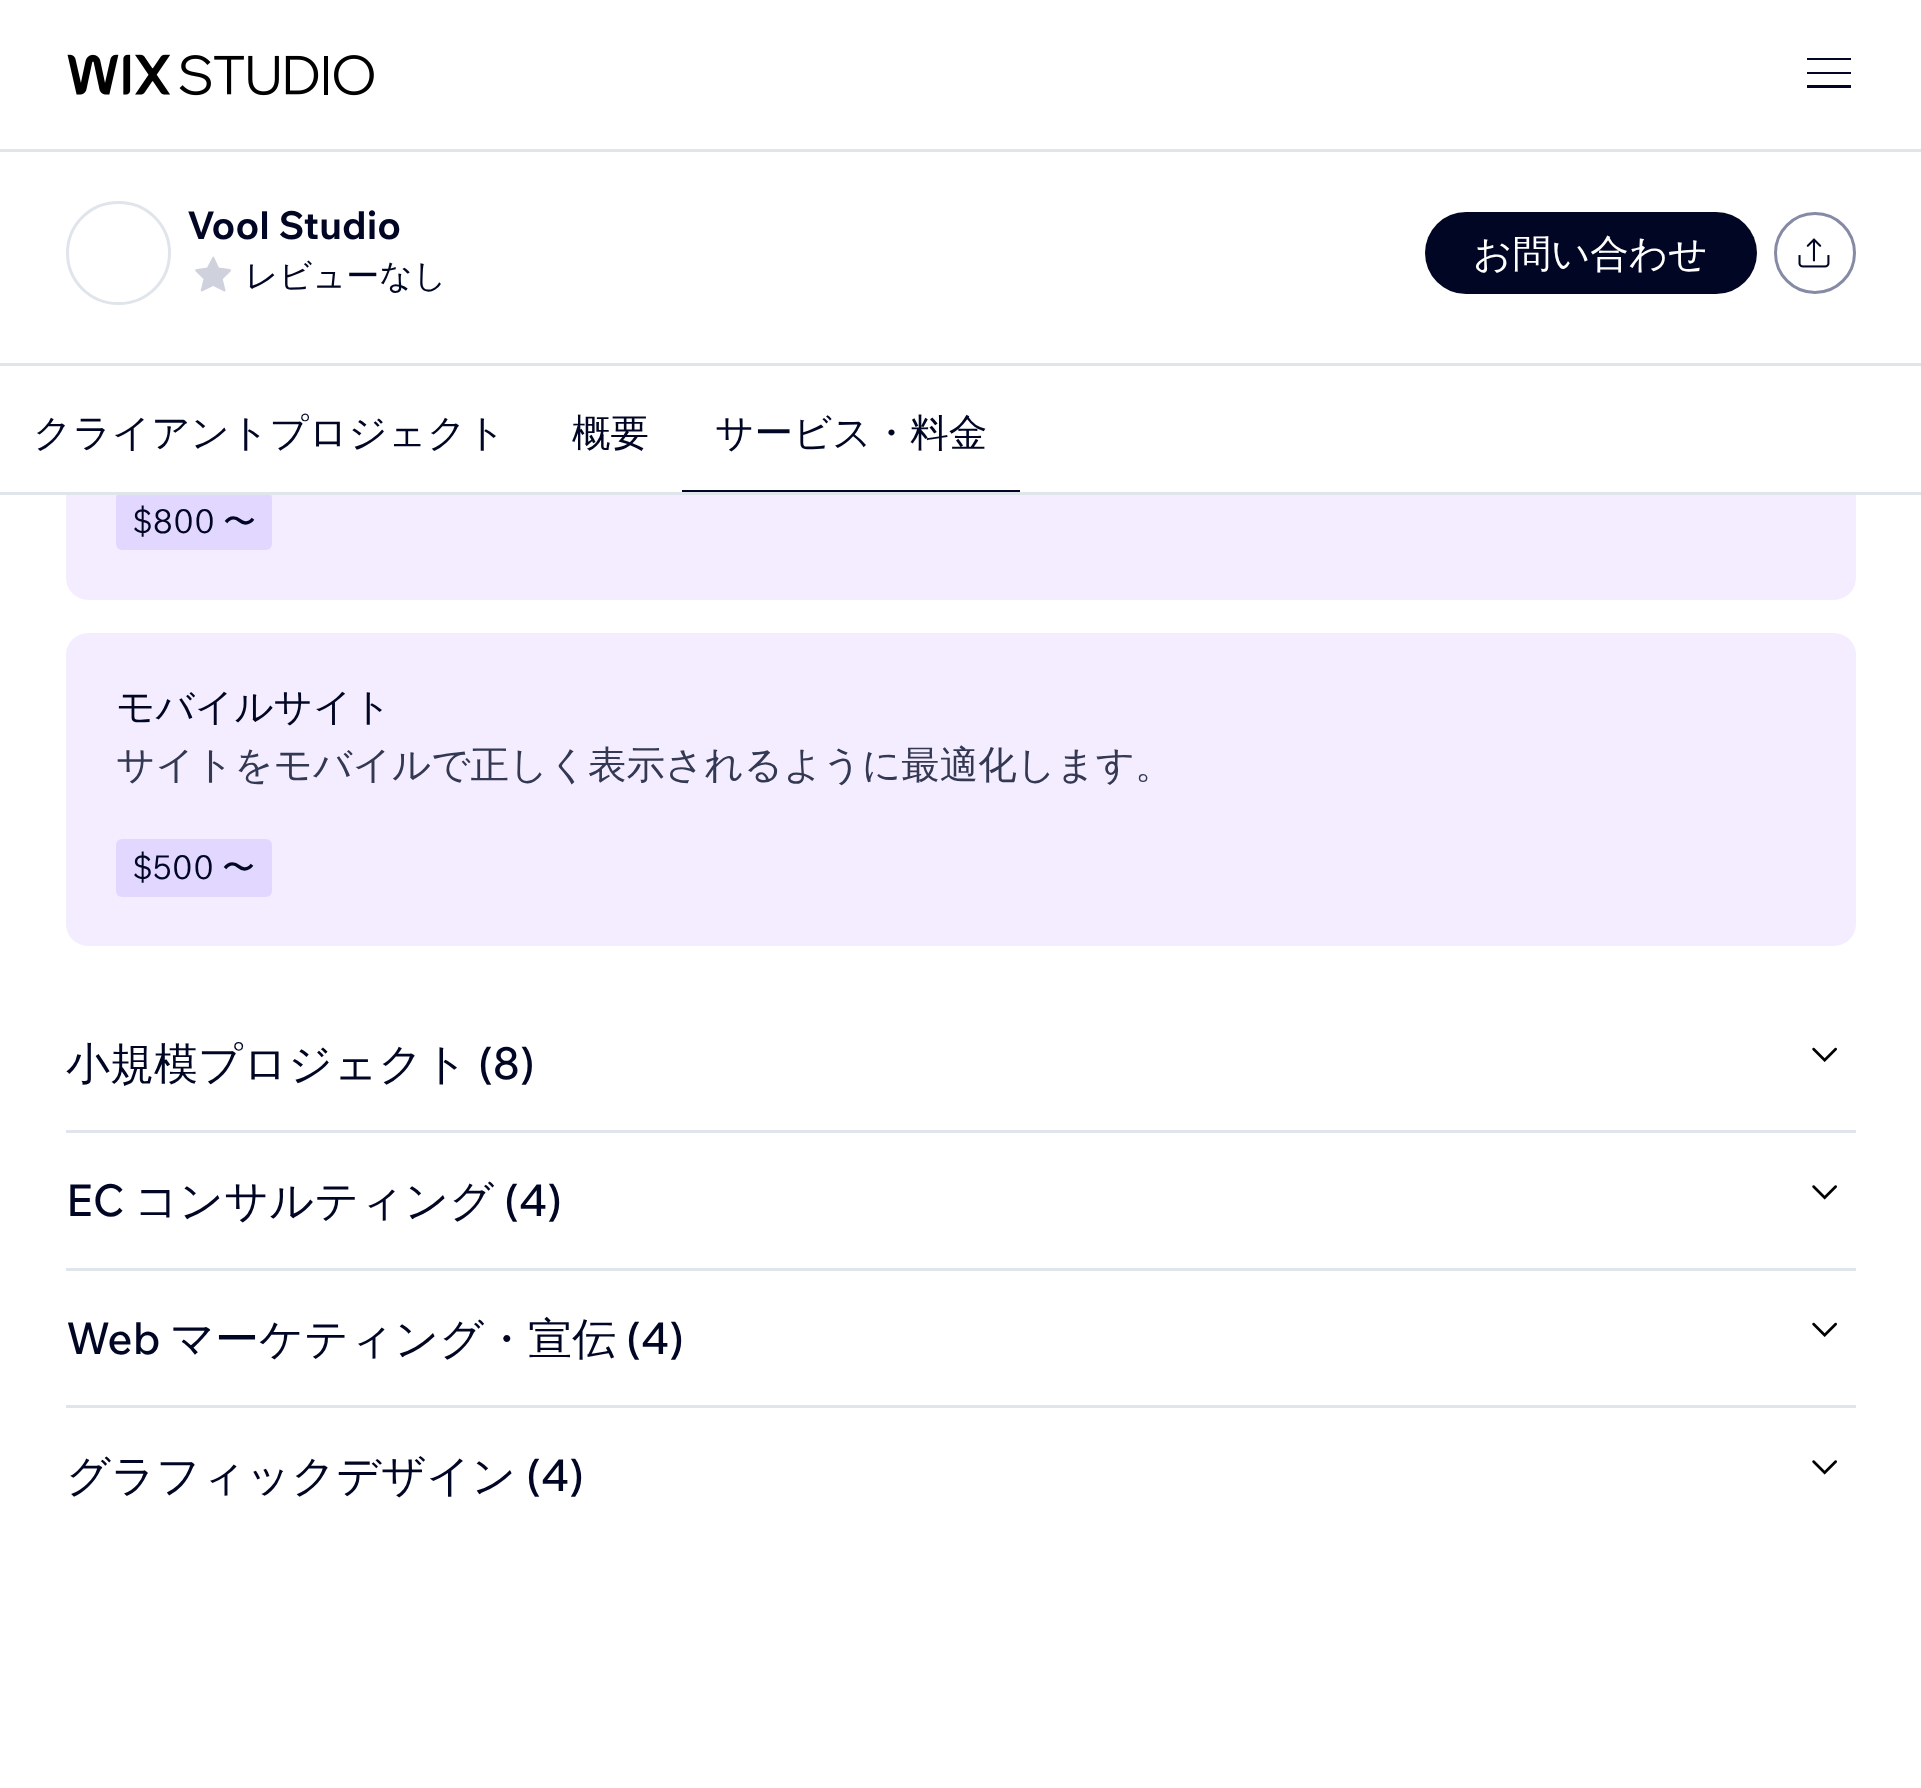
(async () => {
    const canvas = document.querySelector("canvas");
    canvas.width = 1921;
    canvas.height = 1788;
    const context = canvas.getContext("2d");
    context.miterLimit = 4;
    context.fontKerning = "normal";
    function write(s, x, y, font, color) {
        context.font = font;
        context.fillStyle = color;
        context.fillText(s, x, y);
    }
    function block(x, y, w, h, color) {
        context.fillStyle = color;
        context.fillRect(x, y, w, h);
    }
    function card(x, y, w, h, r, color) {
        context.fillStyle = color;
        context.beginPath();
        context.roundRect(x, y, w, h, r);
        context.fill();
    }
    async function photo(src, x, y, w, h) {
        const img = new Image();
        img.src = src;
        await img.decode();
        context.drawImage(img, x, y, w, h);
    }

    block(0, 0, 1921, 1788, "rgb(255, 255, 255)");
    await photo("media/1.png", 67, 54, 104, 41);
    await photo("media/2.png", 179, 55, 195, 41);
    context.fillStyle = "rgb(0, 6, 36)";
    context.beginPath();
    context.moveTo(1851, 85);
    context.lineTo(1851, 88);
    context.lineTo(1807, 88);
    context.lineTo(1807, 85);
    context.closePath();
    context.moveTo(1851, 72);
    context.lineTo(1851, 74);
    context.lineTo(1807, 74);
    context.lineTo(1807, 72);
    context.closePath();
    context.moveTo(1851, 58);
    context.lineTo(1851, 60);
    context.lineTo(1807, 60);
    context.lineTo(1807, 58);
    context.closePath();
    context.fill();
    block(0, 149, 1921, 3, "rgb(223, 229, 235)");
    card(66, 286, 1790, 314, 22, "rgb(244, 237, 255)");
    block(66, 286, 1790, 77, "rgb(255, 255, 255)");
    context.beginPath();
    context.roundRect(67.5, 202.5, 102, 101, 50.5);
    context.strokeStyle = "rgb(223, 229, 235)";
    context.lineWidth = 3;
    context.stroke();
    write("Vool Studio", 187, 239, "bold 38.5px Wix Madefor Text", "rgb(0, 6, 36)");
    await photo("media/3.png", 195, 256, 36, 36);
    write("レビューなし", 245, 287, "500 33px WenQuanYi Zen Hei", "rgb(0, 6, 36)");
    card(1425, 212, 332, 82, 41, "rgb(0, 6, 36)");
    write("お問い合わせ", 1473, 267, "500 38.5px WenQuanYi Zen Hei", "rgb(255, 255, 255)");
    context.beginPath();
    context.arc(1815, 253, 39.5, 0, Math.PI * 2);
    context.strokeStyle = "rgb(134, 138, 165)";
    context.stroke();
    await photo("media/4.png", 1798, 238, 32, 30);
    block(0, 363, 1921, 3, "rgb(223, 229, 235)");
    block(66, 366, 1790, 126, "rgb(255, 255, 255)");
    card(116, 492, 156, 58, 6, "rgb(226, 216, 255)");
    block(0, 492, 1921, 3, "rgb(223, 229, 235)");
    write("クライアントプロジェクト", 33, 446, "500 38.5px WenQuanYi Zen Hei", "rgb(0, 6, 36)");
    write("概要", 572, 446, "500 38.5px WenQuanYi Zen Hei", "rgb(0, 6, 36)");
    write("サービス・料金", 715, 446, "500 38.5px WenQuanYi Zen Hei", "rgb(0, 6, 36)");
    block(682, 490, 338, 2, "rgb(0, 6, 36)");
    write("$800", 132, 533, "33px Wix Madefor Text", "rgb(0, 6, 36)");
    write("〜", 223, 533, "500 33px WenQuanYi Zen Hei", "rgb(0, 6, 36)");
    card(66, 633, 1790, 313, 22, "rgb(244, 237, 255)");
    write("モバイルサイト", 116, 720, "500 38.5px WenQuanYi Zen Hei", "rgb(0, 6, 36)");
    write("サイトをモバイルで正しく表示されるように最適化します。", 116, 778, "500 38.5px WenQuanYi Zen Hei", "rgb(51, 56, 83)");
    card(116, 839, 156, 58, 6, "rgb(226, 216, 255)");
    write("$500", 132, 879, "33px Wix Madefor Text", "rgb(0, 6, 36)");
    write("〜", 222, 879, "500 33px WenQuanYi Zen Hei", "rgb(0, 6, 36)");
    block(66, 1130, 1790, 3, "rgb(223, 229, 235)");
    write("小規模プロジェクト", 66, 1079, "500 44px WenQuanYi Zen Hei", "rgb(0, 6, 36)");
    write("(8)", 478, 1079, "500 44px Wix Madefor Text", "rgb(0, 6, 36)");
    await photo("media/5.png", 1812, 1047, 25, 15);
    block(66, 1268, 1790, 3, "rgb(223, 229, 235)");
    write("EC", 66, 1216, "500 44px Wix Madefor Text", "rgb(0, 6, 36)");
    write("コンサルティング", 134, 1216, "500 44px WenQuanYi Zen Hei", "rgb(0, 6, 36)");
    write("(4)", 504, 1216, "500 44px Wix Madefor Text", "rgb(0, 6, 36)");
    await photo("media/6.png", 1812, 1185, 25, 15);
    block(66, 1405, 1790, 3, "rgb(223, 229, 235)");
    write("Web", 66, 1354, "500 44px Wix Madefor Text", "rgb(0, 6, 36)");
    write("マーケティング・宣伝", 170, 1354, "500 44px WenQuanYi Zen Hei", "rgb(0, 6, 36)");
    write("(4)", 626, 1354, "500 44px Wix Madefor Text", "rgb(0, 6, 36)");
    await photo("media/5.png", 1812, 1322, 25, 15);
    write("グラフィックデザイン", 66, 1491, "500 44px WenQuanYi Zen Hei", "rgb(0, 6, 36)");
    write("(4)", 526, 1491, "500 44px Wix Madefor Text", "rgb(0, 6, 36)");
    await photo("media/6.png", 1812, 1460, 25, 15);
})();
